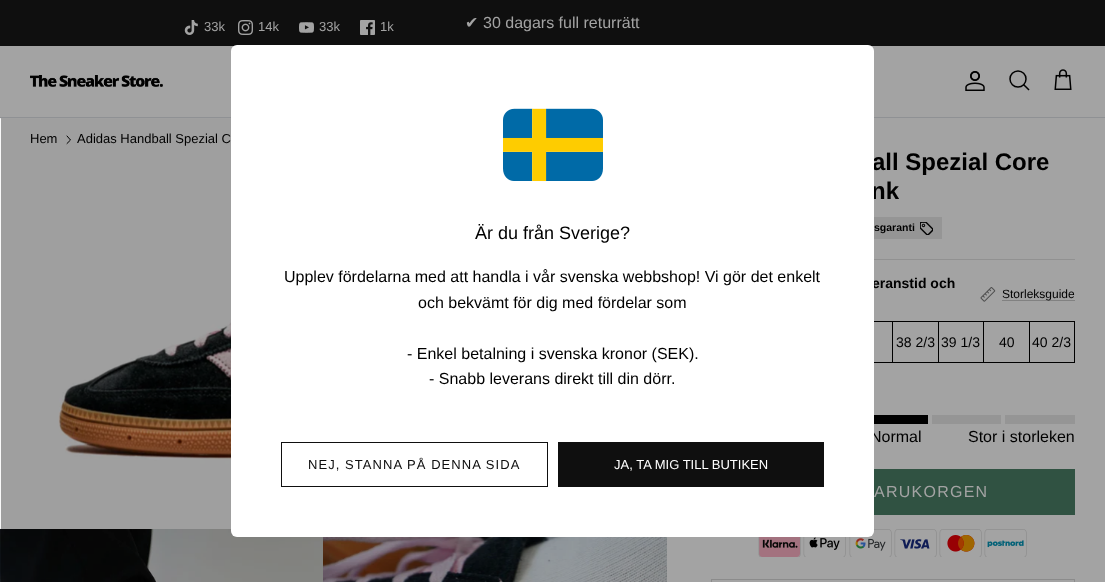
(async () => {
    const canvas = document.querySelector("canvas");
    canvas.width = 1105;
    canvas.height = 582;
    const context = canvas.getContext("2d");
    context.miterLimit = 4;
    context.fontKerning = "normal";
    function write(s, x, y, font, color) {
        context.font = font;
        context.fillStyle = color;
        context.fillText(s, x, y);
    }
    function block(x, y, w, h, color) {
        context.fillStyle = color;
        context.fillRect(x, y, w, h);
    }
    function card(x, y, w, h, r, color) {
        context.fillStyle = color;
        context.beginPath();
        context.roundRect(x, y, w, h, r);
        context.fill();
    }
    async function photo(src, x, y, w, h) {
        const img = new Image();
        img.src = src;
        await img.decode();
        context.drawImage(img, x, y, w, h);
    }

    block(0, 0, 1105, 582, "rgb(163, 163, 163)");
    block(0, 0, 1105, 46, "rgb(15, 15, 15)");
    await photo("media/1.png", 184, 20, 14, 15);
    write("33k", 204, 31, "13px Liberation Sans", "rgb(163, 163, 163)");
    await photo("media/2.png", 238, 20, 15, 15);
    write("14k", 258, 31, "13px Liberation Sans", "rgb(163, 163, 163)");
    await photo("media/3.png", 299, 22, 15, 11);
    write("33k", 319, 31, "13px Liberation Sans", "rgb(163, 163, 163)");
    await photo("media/4.png", 360, 20, 15, 15);
    write("1k", 380, 31, "13px Liberation Sans", "rgb(163, 163, 163)");
    write("✔", 465, 28, "16px DejaVu Sans", "rgb(163, 163, 163)");
    write("30 dagars full returrätt", 483, 28, "16px Liberation Sans", "rgb(163, 163, 163)");
    block(0, 117, 1105, 1, "rgb(143, 145, 148)");
    await photo("media/5.png", 30, 75, 133, 12);
    await photo("media/6.png", 965, 71, 20, 20);
    context.beginPath();
    context.arc(1018, 79, 8, 0, Math.PI * 2);
    context.strokeStyle = "rgb(0, 0, 0)";
    context.lineWidth = 1.5;
    context.stroke();
    context.beginPath();
    context.moveTo(1024, 85);
    context.lineTo(1028.5, 89.5);
    context.lineCap = "square";
    context.stroke();
    await photo("media/7.png", 1054, 69, 18, 21);
    await photo("media/8.png", 0, 118, 231, 411);
    await photo("media/9.png", 0, 529, 323, 53);
    await photo("media/10.png", 323, 537, 344, 45);
    write("Hem", 30, 143, "13px Liberation Sans", "rgb(0, 0, 0)");
    context.beginPath();
    context.moveTo(67, 143.5);
    context.lineTo(70.5, 140);
    context.lineTo(67, 136);
    context.lineWidth = 1;
    context.lineCap = "round";
    context.lineJoin = "round";
    context.stroke();
    write("Adidas Handball Spezial C", 77, 143, "13px Liberation Sans", "rgb(0, 0, 0)");
    write("all Spezial Core", 872, 170, "bold 24px Liberation Sans", "rgb(0, 0, 0)");
    write("nk", 871, 199, "bold 24px Liberation Sans", "rgb(0, 0, 0)");
    block(874, 217, 68, 22, "rgb(149, 149, 149)");
    write("sgaranti", 874, 231, "bold 10.5px Liberation Sans", "rgb(0, 0, 0)");
    await photo("media/11.png", 920, 222, 13, 13);
    block(874, 259, 201, 1, "rgb(145, 145, 145)");
    write("eranstid och", 872, 288, "bold 14px Liberation Sans", "rgb(0, 0, 0)");
    await photo("media/12.png", 980, 287, 16, 15);
    block(1002, 300, 73, 1, "rgb(129, 129, 129)");
    write("Storleksguide", 1002, 298, "12px Liberation Sans", "rgb(0, 0, 0)");
    block(874, 321, 201, 1, "rgb(0, 0, 0)");
    block(892, 322, 1, 41, "rgb(0, 0, 0)");
    block(874, 362, 19, 1, "rgb(0, 0, 0)");
    block(938, 322, 1, 41, "rgb(0, 0, 0)");
    block(893, 362, 46, 1, "rgb(0, 0, 0)");
    write("38 2/3", 896, 347, "14px Liberation Sans", "rgb(0, 0, 0)");
    block(983, 322, 1, 41, "rgb(0, 0, 0)");
    block(939, 362, 45, 1, "rgb(0, 0, 0)");
    write("39 1/3", 941, 347, "14px Liberation Sans", "rgb(0, 0, 0)");
    block(1029, 322, 1, 41, "rgb(0, 0, 0)");
    block(984, 362, 46, 1, "rgb(0, 0, 0)");
    write("40", 999, 347, "14px Liberation Sans", "rgb(0, 0, 0)");
    block(1074, 322, 1, 41, "rgb(0, 0, 0)");
    block(1030, 362, 45, 1, "rgb(0, 0, 0)");
    write("40 2/3", 1032, 347, "14px Liberation Sans", "rgb(0, 0, 0)");
    block(874, 415, 54, 9, "rgb(0, 0, 0)");
    block(932, 415, 69, 9, "rgb(149, 149, 149)");
    block(1005, 415, 70, 9, "rgb(149, 149, 149)");
    write("Normal", 870, 442, "16px Liberation Sans", "rgb(0, 0, 0)");
    write("Stor i storleken", 968, 442, "16px Liberation Sans", "rgb(0, 0, 0)");
    block(874, 469, 201, 46, "rgb(48, 82, 66)");
    context.letterSpacing = "1.25px";
    write("ARUKORGEN", 874, 497, "16px Liberation Sans", "rgb(163, 163, 163)");
    await photo("media/13.png", 758, 537, 43, 20);
    await photo("media/14.png", 803, 537, 43, 20);
    await photo("media/15.png", 849, 529, 43, 28);
    await photo("media/16.png", 894, 529, 43, 28);
    await photo("media/17.png", 939, 529, 43, 28);
    await photo("media/18.png", 984, 529, 43, 28);
    context.strokeStyle = "rgb(139, 139, 139)";
    context.lineJoin = "miter";
    context.strokeRect(711.5, 579.5, 363, 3);
    card(231, 45, 643, 492, 6, "rgb(255, 255, 255)");
    await photo("media/19.png", 503, 108, 100, 74);
    context.letterSpacing = "0px";
    write("Är du från Sverige?", 475, 239, "18px Liberation Sans", "rgb(0, 0, 0)");
    write("Upplev fördelarna med att handla i vår svenska webbshop! Vi gör det enkelt", 284, 282, "16px Liberation Sans", "rgb(0, 0, 0)");
    write("och bekvämt för dig med fördelar som", 418, 308, "16px Liberation Sans", "rgb(0, 0, 0)");
    write("- Enkel betalning i svenska kronor (SEK).", 407, 359, "16px Liberation Sans", "rgb(0, 0, 0)");
    write("- Snabb leverans direkt till din dörr.", 429, 384, "16px Liberation Sans", "rgb(0, 0, 0)");
    context.strokeStyle = "rgb(15, 15, 15)";
    context.strokeRect(281.5, 442.5, 266, 44);
    context.letterSpacing = "1.05px";
    write("NEJ, STANNA PÅ DENNA SIDA", 308, 469, "13px Liberation Sans", "rgb(15, 15, 15)");
    block(558, 442, 266, 45, "rgb(15, 15, 15)");
    context.letterSpacing = "0px";
    write("JA, TA MIG TILL BUTIKEN", 614, 469, "13px Liberation Sans", "rgb(255, 255, 255)");
})();
